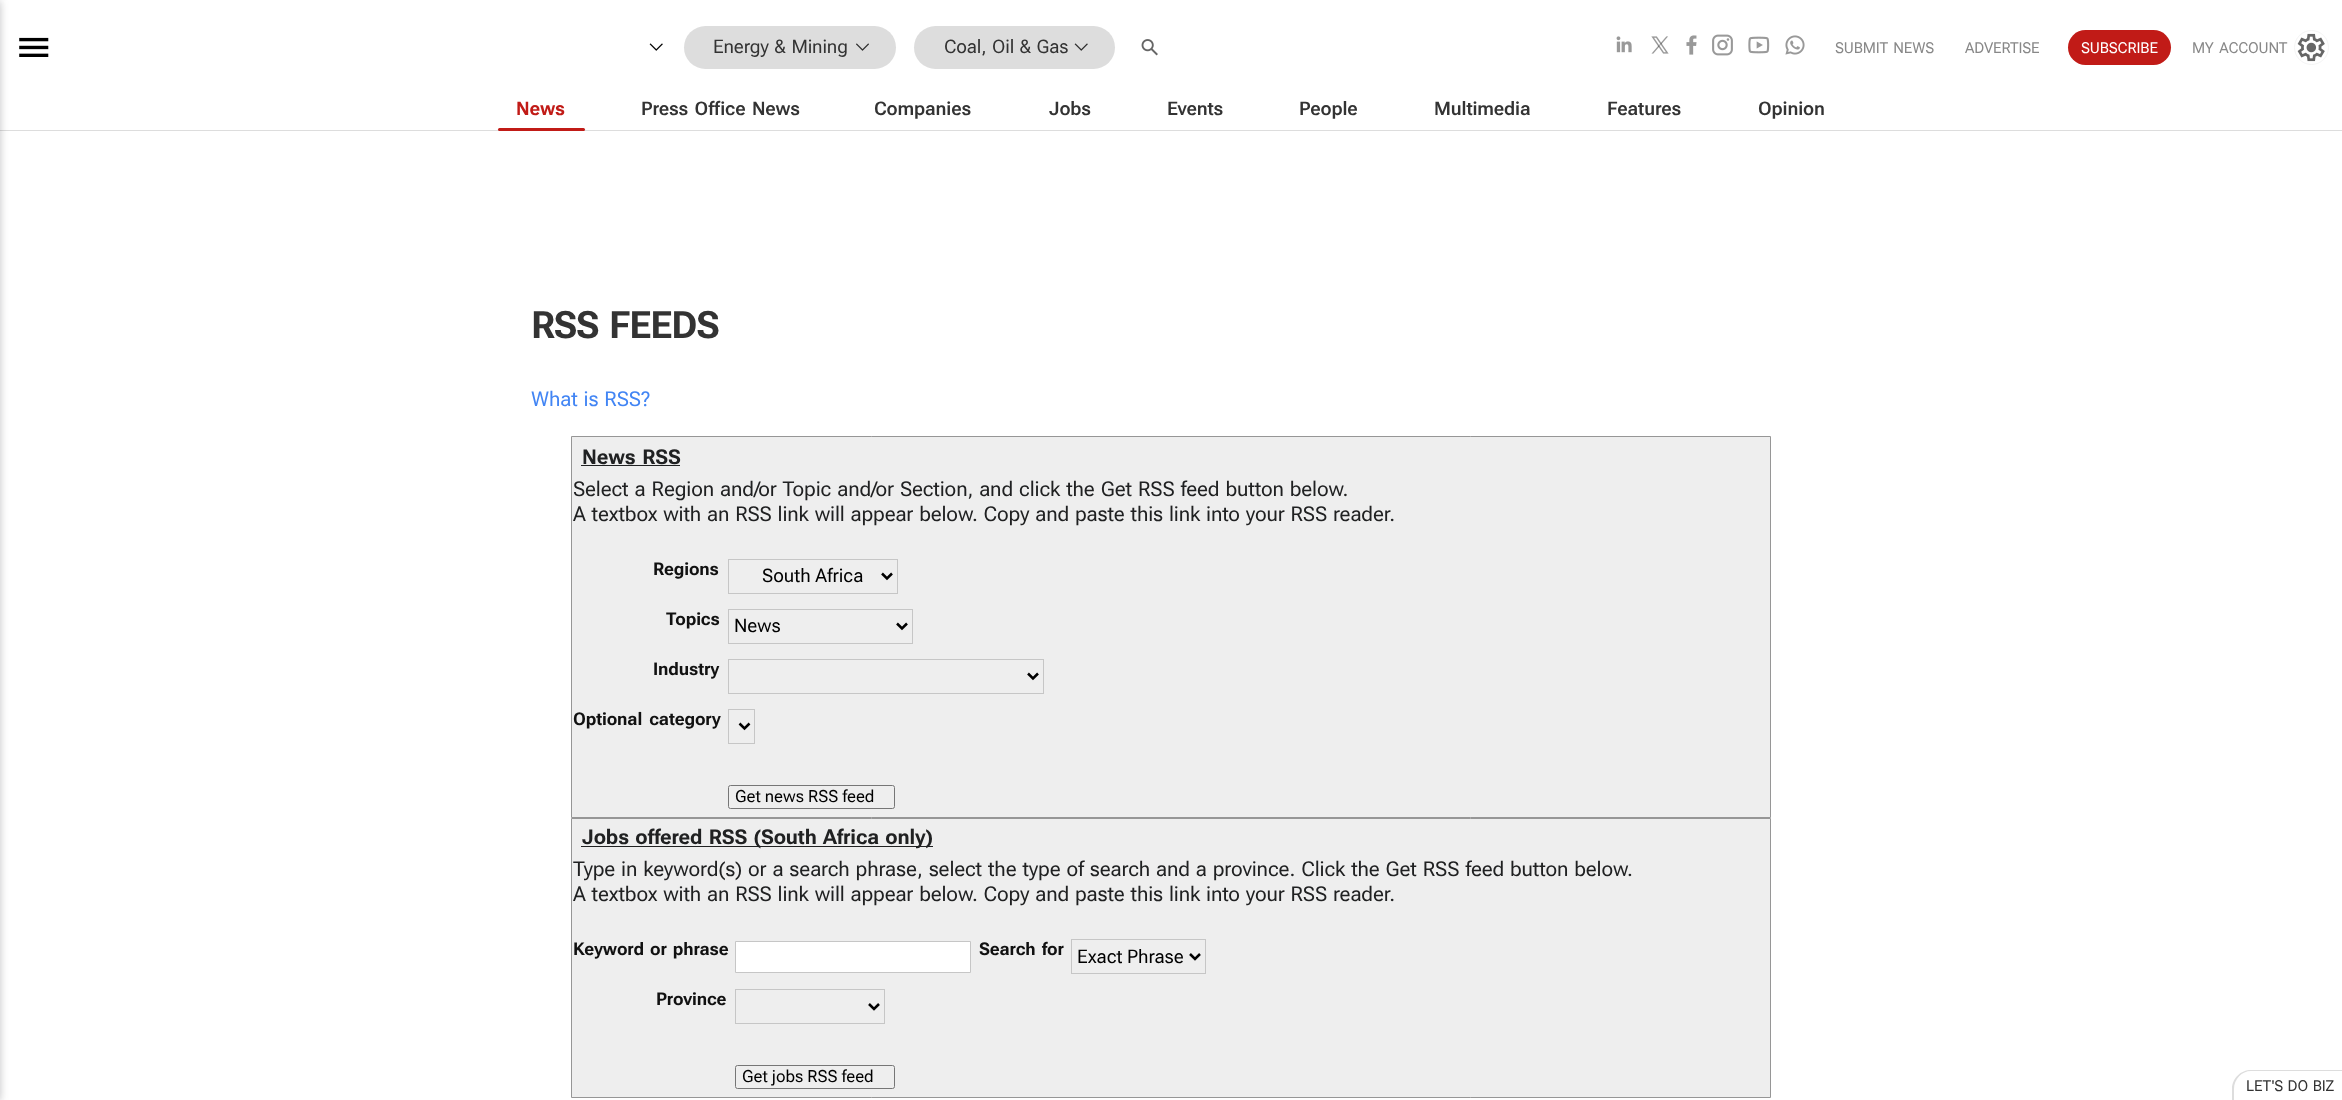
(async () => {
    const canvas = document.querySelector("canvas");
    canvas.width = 2342;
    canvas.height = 1100;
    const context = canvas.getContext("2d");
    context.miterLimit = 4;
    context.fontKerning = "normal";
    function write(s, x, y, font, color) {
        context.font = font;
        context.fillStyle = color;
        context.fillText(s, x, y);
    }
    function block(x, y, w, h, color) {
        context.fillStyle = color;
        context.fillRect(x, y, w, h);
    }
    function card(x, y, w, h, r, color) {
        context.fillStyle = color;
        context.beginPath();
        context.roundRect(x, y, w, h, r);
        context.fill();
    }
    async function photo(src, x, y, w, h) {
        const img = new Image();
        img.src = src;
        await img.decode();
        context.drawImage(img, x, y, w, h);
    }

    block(0, 0, 2342, 1100, "rgb(255, 255, 255)");
    block(0, 130, 2342, 1, "rgb(221, 221, 221)");
    context.fillStyle = "rgba(32, 33, 36, 0.28)";
    context.filter = "blur(4px)";
    context.beginPath();
    context.rect(-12, 1, 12, 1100);
    context.fill();
    context.filter = "none";
    await photo("media/1.png", 19, 37, 30, 20);
    await photo("media/2.png", 649, 43, 14, 8);
    card(684, 26, 212, 43, 21.5, "rgb(221, 221, 221)");
    context.letterSpacing = "-0.12px";
    context.wordSpacing = "1px";
    write("Energy & Mining", 713, 53, "18.75px Roboto Flex", "rgb(51, 51, 51)");
    await photo("media/3.png", 856, 43, 13, 8);
    card(914, 26, 201, 43, 21.5, "rgb(221, 221, 221)");
    write("Coal, Oil & Gas", 944, 53, "18.75px Roboto Flex", "rgb(51, 51, 51)");
    await photo("media/4.png", 1074, 43, 14, 8);
    await photo("media/5.png", 1141, 39, 17, 17);
    await photo("media/6.png", 1616, 36, 16, 17);
    await photo("media/7.png", 1651, 36, 18, 18);
    await photo("media/8.png", 1686, 35, 11, 20);
    await photo("media/9.png", 1712, 34, 21, 22);
    await photo("media/10.png", 1748, 36, 22, 18);
    await photo("media/11.png", 1785, 35, 20, 20);
    context.wordSpacing = "2px";
    write("SUBMIT NEWS", 1835, 53, "15px Roboto Flex", "rgb(136, 136, 136)");
    context.wordSpacing = "0px";
    write("ADVERTISE", 1965, 53, "15px Roboto Flex", "rgb(136, 136, 136)");
    card(2068, 30, 103, 35, 17.5, "rgb(193, 27, 23)");
    write("SUBSCRIBE", 2081, 53, "15px Roboto Flex", "rgb(255, 255, 255)");
    context.wordSpacing = "2px";
    write("MY ACCOUNT", 2192, 53, "15px Roboto Flex", "rgb(136, 136, 136)");
    await photo("media/12.png", 2297, 33, 28, 29);
    context.beginPath();
    context.arc(2311.5, 47.5, 17, 0, Math.PI * 2);
    context.strokeStyle = "rgb(245, 245, 245)";
    context.stroke();
    context.wordSpacing = "0px";
    write("News", 516, 115, "bold 18.75px Roboto Flex", "rgb(193, 27, 23)");
    card(498, 128, 87, 3, 1.5, "rgb(193, 27, 23)");
    context.wordSpacing = "2px";
    write("Press Office News", 641, 115, "600 18.75px Roboto Flex", "rgb(51, 51, 51)");
    context.wordSpacing = "0px";
    write("Companies", 874, 115, "600 18.75px Roboto Flex", "rgb(51, 51, 51)");
    write("Jobs", 1049, 115, "600 18.75px Roboto Flex", "rgb(51, 51, 51)");
    write("Events", 1167, 115, "600 18.75px Roboto Flex", "rgb(51, 51, 51)");
    write("People", 1299, 115, "600 18.75px Roboto Flex", "rgb(51, 51, 51)");
    write("Multimedia", 1434, 115, "600 18.75px Roboto Flex", "rgb(51, 51, 51)");
    write("Features", 1607, 115, "600 18.75px Roboto Flex", "rgb(51, 51, 51)");
    write("Opinion", 1758, 115, "600 18.75px Roboto Flex", "rgb(51, 51, 51)");
    context.letterSpacing = "-1.25px";
    context.wordSpacing = "3px";
    write("RSS FEEDS", 531, 338, "bold 37.5px Roboto Flex", "rgb(51, 51, 51)");
    context.letterSpacing = "-0.12px";
    context.wordSpacing = "1px";
    write("What is RSS?", 531, 406, "20.5px Roboto Flex", "rgb(66, 133, 244)");
    context.fillStyle = "rgb(238, 238, 238)";
    context.beginPath();
    context.rect(571.5, 436.5, 1199, 381);
    context.fill();
    context.strokeStyle = "rgb(150, 150, 150)";
    context.stroke();
    context.wordSpacing = "2px";
    write("News RSS", 582, 464, "bold 20.5px Roboto Flex", "rgb(32, 33, 34)");
    block(581, 465, 99, 1, "rgb(32, 33, 34)");
    context.wordSpacing = "1.2px";
    write("Select a Region and/or Topic and/or Section, and click the Get RSS feed button below.", 573, 496, "20.5px Roboto Flex", "rgb(32, 33, 34)");
    context.wordSpacing = "1px";
    write("A textbox with an RSS link will appear below. Copy and paste this link into your RSS reader.", 573, 521, "20.5px Roboto Flex", "rgb(32, 33, 34)");
    context.wordSpacing = "0px";
    write("Regions", 653, 575, "bold 17.5px Roboto Flex", "rgb(17, 17, 17)");
    context.strokeStyle = "rgb(198, 198, 198)";
    context.strokeRect(728.5, 559.5, 169, 34);
    context.beginPath();
    context.moveTo(882, 573.5);
    context.lineTo(887, 578.5);
    context.lineTo(892, 573.5);
    context.strokeStyle = "rgb(0, 0, 0)";
    context.lineWidth = 2.5;
    context.stroke();
    context.letterSpacing = "0px";
    write("South Africa", 762, 582, "18.75px Roboto Flex", "rgb(0, 0, 0)");
    context.letterSpacing = "-0.12px";
    write("Topics", 666, 625, "bold 17.5px Roboto Flex", "rgb(17, 17, 17)");
    context.strokeStyle = "rgb(198, 198, 198)";
    context.lineWidth = 1;
    context.strokeRect(728.5, 609.5, 184, 34);
    context.beginPath();
    context.moveTo(897, 623.5);
    context.lineTo(902, 628.5);
    context.lineTo(907, 623.5);
    context.strokeStyle = "rgb(0, 0, 0)";
    context.lineWidth = 2.5;
    context.stroke();
    context.letterSpacing = "0px";
    write("News", 734, 632, "18.75px Roboto Flex", "rgb(0, 0, 0)");
    context.letterSpacing = "-0.12px";
    write("Industry", 653, 675, "bold 17.5px Roboto Flex", "rgb(17, 17, 17)");
    context.strokeStyle = "rgb(198, 198, 198)";
    context.lineWidth = 1;
    context.strokeRect(728.5, 659.5, 315, 34);
    context.beginPath();
    context.moveTo(1028, 673.5);
    context.lineTo(1033, 678.5);
    context.lineTo(1038, 673.5);
    context.strokeStyle = "rgb(0, 0, 0)";
    context.lineWidth = 2.5;
    context.stroke();
    context.wordSpacing = "3px";
    write("Optional category", 573, 725, "bold 17.5px Roboto Flex", "rgb(17, 17, 17)");
    context.strokeStyle = "rgb(198, 198, 198)";
    context.lineWidth = 1;
    context.strokeRect(728.5, 709.5, 26, 34);
    context.beginPath();
    context.moveTo(739.5, 723.5);
    context.lineTo(744.5, 728.5);
    context.lineTo(749.5, 723.5);
    context.strokeStyle = "rgb(0, 0, 0)";
    context.lineWidth = 2.5;
    context.stroke();
    context.beginPath();
    context.roundRect(728.5, 785.5, 166, 23, 2);
    context.strokeStyle = "rgb(118, 118, 118)";
    context.lineWidth = 1;
    context.stroke();
    context.letterSpacing = "0px";
    context.wordSpacing = "0px";
    write("Get news RSS feed", 735, 802, "16.75px Roboto Flex", "rgb(0, 0, 0)");
    context.fillStyle = "rgb(238, 238, 238)";
    context.beginPath();
    context.rect(571.5, 818.5, 1199, 279);
    context.fill();
    context.strokeStyle = "rgb(150, 150, 150)";
    context.stroke();
    block(581, 846, 352, 1, "rgb(32, 33, 34)");
    context.letterSpacing = "-0.12px";
    context.wordSpacing = "1.5px";
    write("Jobs offered RSS (South Africa only)", 582, 844, "bold 20.5px Roboto Flex", "rgb(32, 33, 34)");
    context.wordSpacing = "1.1px";
    write("Type in keyword(s) or a search phrase, select the type of search and a province. Click the Get RSS feed button below.", 573, 876, "20.5px Roboto Flex", "rgb(32, 33, 34)");
    context.wordSpacing = "1px";
    write("A textbox with an RSS link will appear below. Copy and paste this link into your RSS reader.", 573, 901, "20.5px Roboto Flex", "rgb(32, 33, 34)");
    context.wordSpacing = "2px";
    write("Keyword or phrase", 573, 955, "bold 17.5px Roboto Flex", "rgb(17, 17, 17)");
    context.fillStyle = "rgb(255, 255, 255)";
    context.beginPath();
    context.rect(735.5, 941.5, 235, 31);
    context.fill();
    context.strokeStyle = "rgb(198, 198, 198)";
    context.stroke();
    write("Search for", 979, 955, "bold 17.5px Roboto Flex", "rgb(17, 17, 17)");
    context.strokeRect(1071.5, 939.5, 134, 34);
    context.beginPath();
    context.moveTo(1190, 954);
    context.lineTo(1195, 959);
    context.lineTo(1200, 954);
    context.strokeStyle = "rgb(0, 0, 0)";
    context.lineWidth = 2.5;
    context.stroke();
    context.letterSpacing = "0px";
    context.wordSpacing = "0px";
    write("Exact Phrase", 1077, 963, "18.75px Roboto Flex", "rgb(0, 0, 0)");
    context.letterSpacing = "-0.12px";
    write("Province", 656, 1005, "bold 17.5px Roboto Flex", "rgb(17, 17, 17)");
    context.strokeStyle = "rgb(198, 198, 198)";
    context.lineWidth = 1;
    context.strokeRect(735.5, 989.5, 149, 34);
    context.beginPath();
    context.moveTo(869, 1004);
    context.lineTo(874, 1009);
    context.lineTo(879, 1004);
    context.strokeStyle = "rgb(0, 0, 0)";
    context.lineWidth = 2.5;
    context.stroke();
    context.beginPath();
    context.roundRect(735.5, 1065.5, 159, 23, 2);
    context.strokeStyle = "rgb(118, 118, 118)";
    context.lineWidth = 1;
    context.stroke();
    context.letterSpacing = "0px";
    write("Get jobs RSS feed", 742, 1082, "16.75px Roboto Flex", "rgb(0, 0, 0)");
    context.fillStyle = "rgb(221, 221, 221)";
    context.beginPath();
    context.moveTo(2251, 1070);
    context.lineTo(2342, 1070);
    context.lineTo(2342, 1100);
    context.lineTo(2232, 1100);
    context.lineTo(2232, 1089);
    context.bezierCurveTo(2232, 1078, 2241, 1070, 2251, 1070);
    context.closePath();
    context.moveTo(2251, 1071);
    context.lineTo(2342, 1071);
    context.lineTo(2342, 1100);
    context.lineTo(2234, 1100);
    context.lineTo(2234, 1089);
    context.bezierCurveTo(2234, 1079, 2242, 1071, 2251, 1071);
    context.closePath();
    context.fill("evenodd");
    context.letterSpacing = "-0.12px";
    context.wordSpacing = "1px";
    write("LET'S DO BIZ", 2246, 1091, "15px Roboto Flex", "rgb(51, 51, 51)");
})();
